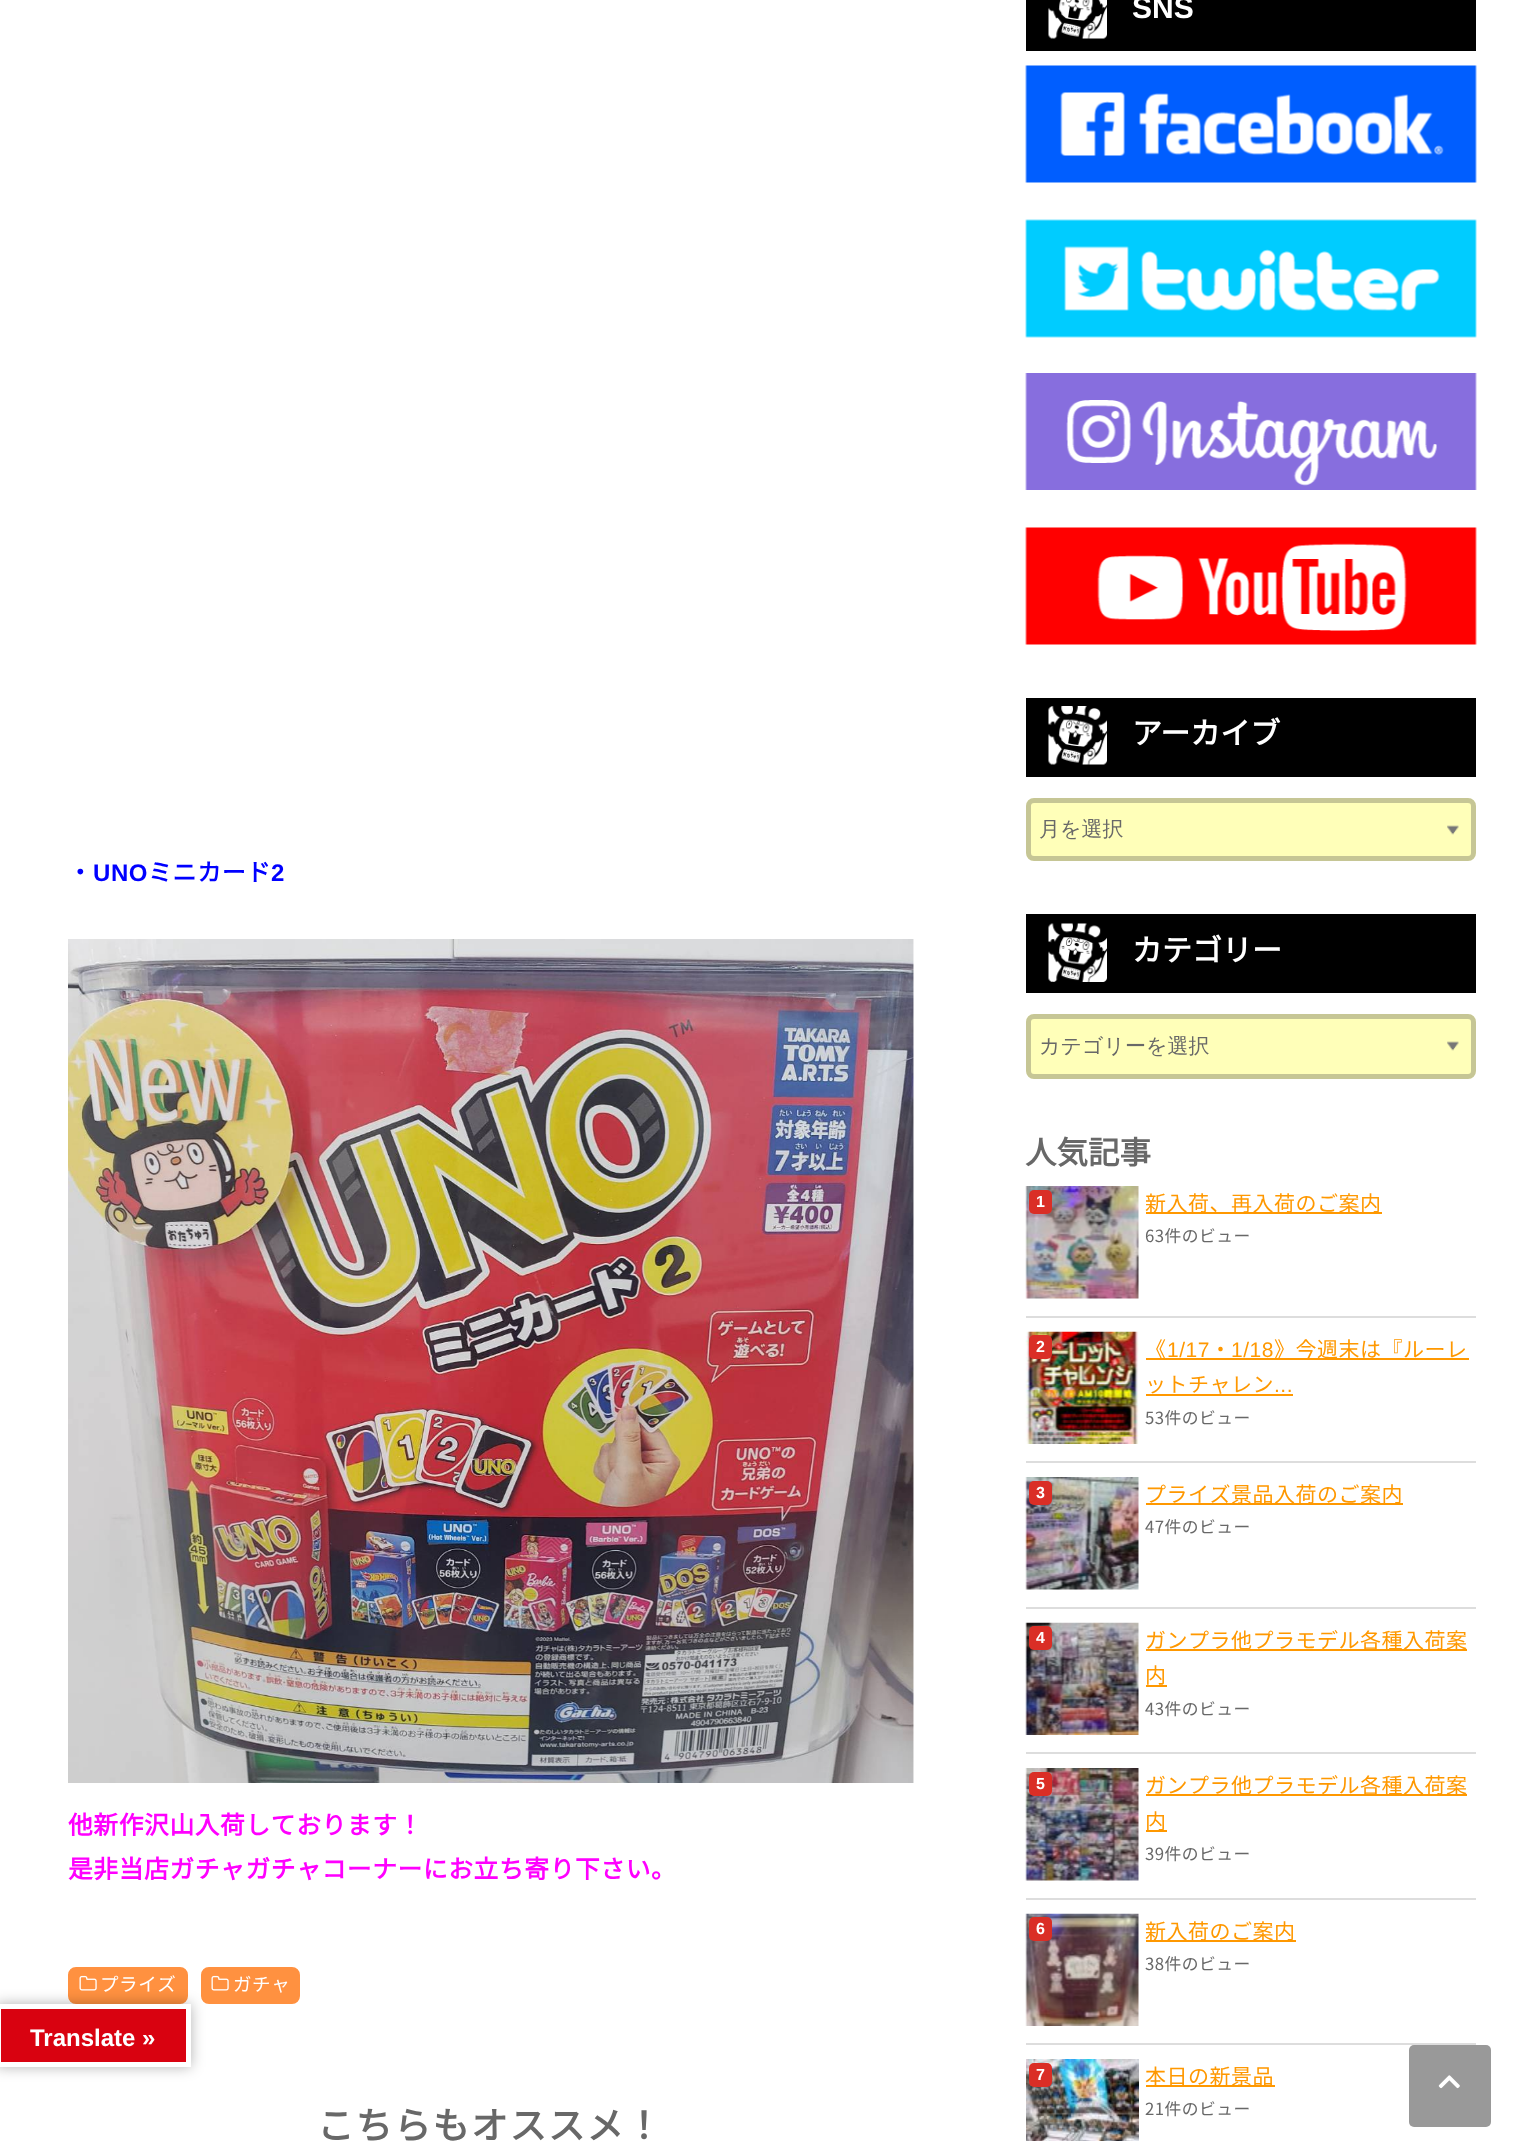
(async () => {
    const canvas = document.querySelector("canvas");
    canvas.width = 1520;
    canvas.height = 2141;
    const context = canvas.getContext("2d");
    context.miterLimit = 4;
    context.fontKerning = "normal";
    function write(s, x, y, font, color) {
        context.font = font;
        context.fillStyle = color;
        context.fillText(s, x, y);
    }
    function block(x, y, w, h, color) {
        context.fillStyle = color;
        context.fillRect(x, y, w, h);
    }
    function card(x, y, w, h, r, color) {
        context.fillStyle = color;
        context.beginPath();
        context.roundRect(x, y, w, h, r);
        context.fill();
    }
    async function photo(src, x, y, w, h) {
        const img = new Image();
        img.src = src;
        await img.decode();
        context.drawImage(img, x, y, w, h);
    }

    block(0, 0, 1520, 2141, "rgb(255, 255, 255)");
    context.letterSpacing = "0.6px";
    write("・", 68, 881, "bold 24px Noto Sans JP", "rgb(0, 0, 255)");
    write("UNO", 93, 881, "bold 24px Liberation Sans", "rgb(0, 0, 255)");
    write("ミニカード", 148, 881, "bold 24px Noto Sans JP", "rgb(0, 0, 255)");
    write("2", 271, 881, "bold 24px Liberation Sans", "rgb(0, 0, 255)");
    await photo("media/1.png", 68, 939, 846, 844);
    write("他新作沢山入荷しております！", 68, 1834, "bold 24.75px Noto Sans JP", "rgb(255, 0, 255)");
    write("是非当店ガチャガチャコーナーにお立ち寄り下さい。", 68, 1878, "bold 24.75px Noto Sans JP", "rgb(255, 0, 255)");
    context.fillStyle = "rgb(255, 145, 64)";
    context.beginPath();
    context.roundRect(69, 1968, 118, 35, 7);
    context.fill();
    context.strokeStyle = "rgb(255, 145, 64)";
    context.lineWidth = 2;
    context.stroke();
    await photo("media/2.png", 79, 1975, 18, 16);
    write("プライズ", 100, 1991, "100 18.5px Noto Sans JP", "rgb(255, 255, 255)");
    context.fillStyle = "rgb(255, 145, 64)";
    context.beginPath();
    context.roundRect(202, 1968, 97, 35, 7);
    context.fill();
    context.stroke();
    await photo("media/2.png", 211, 1975, 18, 16);
    write("ガチャ", 233, 1991, "100 18.5px Noto Sans JP", "rgb(255, 255, 255)");
    context.letterSpacing = "1.5px";
    write("こちらもオススメ！", 317, 2139, "bold 37px Noto Sans JP", "rgb(104, 104, 104)");
    block(1026, 0, 450, 51, "rgb(0, 0, 0)");
    await photo("media/3.png", 1048, 0, 59, 39);
    context.letterSpacing = "0px";
    write("SNS", 1132, 18, "bold 30px Liberation Sans", "rgb(255, 255, 255)");
    await photo("media/4.png", 1025, 65, 452, 118);
    await photo("media/5.png", 1025, 219, 452, 119);
    await photo("media/6.png", 1025, 373, 452, 117);
    await photo("media/7.png", 1025, 527, 452, 118);
    block(1026, 698, 450, 79, "rgb(0, 0, 0)");
    await photo("media/8.png", 1048, 706, 59, 59);
    write("アーカイブ", 1132, 744, "bold 30px Noto Sans JP", "rgb(255, 255, 255)");
    card(1026, 798, 450, 63, 8, "rgb(255, 255, 185)");
    await photo("media/9.png", 1447, 825, 12, 10);
    context.beginPath();
    context.roundRect(1028.5, 800.5, 445, 58, 5.5);
    context.strokeStyle = "rgba(66, 66, 66, 0.3)";
    context.lineWidth = 5;
    context.stroke();
    write("月を選択", 1039, 836, "500 21px WenQuanYi Zen Hei", "rgb(104, 104, 104)");
    block(1026, 914, 450, 79, "rgb(0, 0, 0)");
    await photo("media/10.png", 1048, 923, 59, 59);
    write("カテゴリー", 1132, 961, "bold 30px Noto Sans JP", "rgb(255, 255, 255)");
    card(1026, 1014, 450, 65, 8, "rgb(255, 255, 185)");
    await photo("media/9.png", 1447, 1041, 12, 10);
    context.beginPath();
    context.roundRect(1028.5, 1016.5, 445, 60, 5.5);
    context.stroke();
    write("カテゴリーを選択", 1039, 1053, "500 21px WenQuanYi Zen Hei", "rgb(104, 104, 104)");
    write("人気記事", 1025, 1164, "bold 31.5px Noto Sans JP", "rgb(104, 104, 104)");
    block(1026, 1316, 450, 2, "rgb(221, 221, 221)");
    await photo("media/11.png", 1025, 1186, 114, 113);
    card(1029, 1190, 23, 24, 5, "rgb(218, 46, 38)");
    context.letterSpacing = "0.5px";
    write("1", 1036, 1207, "bold 16px Liberation Sans", "rgb(255, 255, 255)");
    block(1146, 1212, 236, 2, "rgb(255, 152, 0)");
    write("新入荷、再入荷のご案内", 1145, 1211, "100 21px Noto Sans JP", "rgb(255, 152, 0)");
    write("63件のビュー", 1145, 1242, "100 16.75px Noto Sans JP", "rgb(104, 104, 104)");
    block(1026, 1461, 450, 2, "rgb(221, 221, 221)");
    await photo("media/12.png", 1025, 1331, 114, 113);
    card(1029, 1335, 23, 24, 5, "rgb(218, 46, 38)");
    write("2", 1036, 1352, "bold 16px Liberation Sans", "rgb(255, 255, 255)");
    block(1146, 1358, 323, 2, "rgb(255, 152, 0)");
    write("《", 1145, 1357, "100 21px Noto Sans JP", "rgb(255, 152, 0)");
    write("1/17", 1167, 1357, "21px Liberation Sans", "rgb(255, 152, 0)");
    write("・", 1210, 1357, "100 21px Noto Sans JP", "rgb(255, 152, 0)");
    write("1/18", 1231, 1357, "21px Liberation Sans", "rgb(255, 152, 0)");
    write("》今週末は『ルーレ", 1274, 1357, "100 21px Noto Sans JP", "rgb(255, 152, 0)");
    write("ットチャレン", 1145, 1392, "100 21px Noto Sans JP", "rgb(255, 152, 0)");
    write("...", 1274, 1392, "21px Liberation Sans", "rgb(255, 152, 0)");
    block(1146, 1394, 147, 2, "rgb(255, 152, 0)");
    write("53件のビュー", 1145, 1424, "100 16.75px Noto Sans JP", "rgb(104, 104, 104)");
    block(1026, 1607, 450, 2, "rgb(221, 221, 221)");
    await photo("media/13.png", 1025, 1477, 114, 113);
    card(1029, 1481, 23, 24, 5, "rgb(218, 46, 38)");
    write("3", 1036, 1498, "bold 16px Liberation Sans", "rgb(255, 255, 255)");
    block(1146, 1503, 257, 2, "rgb(255, 152, 0)");
    write("プライズ景品入荷のご案内", 1145, 1502, "100 21px Noto Sans JP", "rgb(255, 152, 0)");
    write("47件のビュー", 1145, 1533, "100 16.75px Noto Sans JP", "rgb(104, 104, 104)");
    block(1026, 1752, 450, 2, "rgb(221, 221, 221)");
    await photo("media/14.png", 1025, 1622, 114, 113);
    card(1029, 1626, 23, 24, 5, "rgb(218, 46, 38)");
    write("4", 1036, 1643, "bold 16px Liberation Sans", "rgb(255, 255, 255)");
    block(1146, 1649, 321, 2, "rgb(255, 152, 0)");
    write("ガンプラ他プラモデル各種入荷案", 1145, 1648, "100 21px Noto Sans JP", "rgb(255, 152, 0)");
    write("内", 1145, 1683, "100 21px Noto Sans JP", "rgb(255, 152, 0)");
    block(1146, 1685, 21, 2, "rgb(255, 152, 0)");
    write("43件のビュー", 1145, 1715, "100 16.75px Noto Sans JP", "rgb(104, 104, 104)");
    block(1026, 1898, 450, 2, "rgb(221, 221, 221)");
    await photo("media/15.png", 1025, 1768, 114, 113);
    card(1029, 1772, 23, 24, 5, "rgb(218, 46, 38)");
    write("5", 1036, 1789, "bold 16px Liberation Sans", "rgb(255, 255, 255)");
    block(1146, 1794, 321, 2, "rgb(255, 152, 0)");
    write("ガンプラ他プラモデル各種入荷案", 1145, 1793, "100 21px Noto Sans JP", "rgb(255, 152, 0)");
    block(1146, 1830, 21, 2, "rgb(255, 152, 0)");
    write("内", 1145, 1829, "100 21px Noto Sans JP", "rgb(255, 152, 0)");
    write("39件のビュー", 1145, 1860, "100 16.75px Noto Sans JP", "rgb(104, 104, 104)");
    block(1026, 2043, 450, 2, "rgb(221, 221, 221)");
    await photo("media/16.png", 1025, 1913, 114, 113);
    card(1029, 1917, 23, 24, 5, "rgb(218, 46, 38)");
    write("6", 1036, 1934, "bold 16px Liberation Sans", "rgb(255, 255, 255)");
    block(1146, 1940, 150, 2, "rgb(255, 152, 0)");
    write("新入荷のご案内", 1145, 1939, "100 21px Noto Sans JP", "rgb(255, 152, 0)");
    write("38件のビュー", 1145, 1970, "100 16.75px Noto Sans JP", "rgb(104, 104, 104)");
    await photo("media/17.png", 1026, 2059, 113, 82);
    card(1029, 2063, 23, 24, 5, "rgb(218, 46, 38)");
    write("7", 1036, 2080, "bold 16px Liberation Sans", "rgb(255, 255, 255)");
    block(1146, 2085, 129, 2, "rgb(255, 152, 0)");
    write("本日の新景品", 1145, 2084, "100 21px Noto Sans JP", "rgb(255, 152, 0)");
    write("21件のビュー", 1145, 2115, "100 16.75px Noto Sans JP", "rgb(104, 104, 104)");
    card(1409, 2045, 82, 82, 5, "rgb(153, 153, 153)");
    await photo("media/18.png", 1438, 2075, 22, 14);
    context.fillStyle = "rgba(0, 0, 0, 0.3)";
    context.filter = "blur(7px)";
    context.beginPath();
    context.rect(-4, 2004, 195, 63);
    context.fill();
    context.filter = "none";
    context.fillStyle = "rgb(217, 2, 16)";
    context.beginPath();
    context.rect(-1.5, 2006.5, 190, 58);
    context.fill();
    context.strokeStyle = "rgb(255, 255, 255)";
    context.stroke();
    context.letterSpacing = "0px";
    write("Translate »", 30, 2046, "bold 24px Liberation Sans", "rgb(255, 255, 255)");
})();
